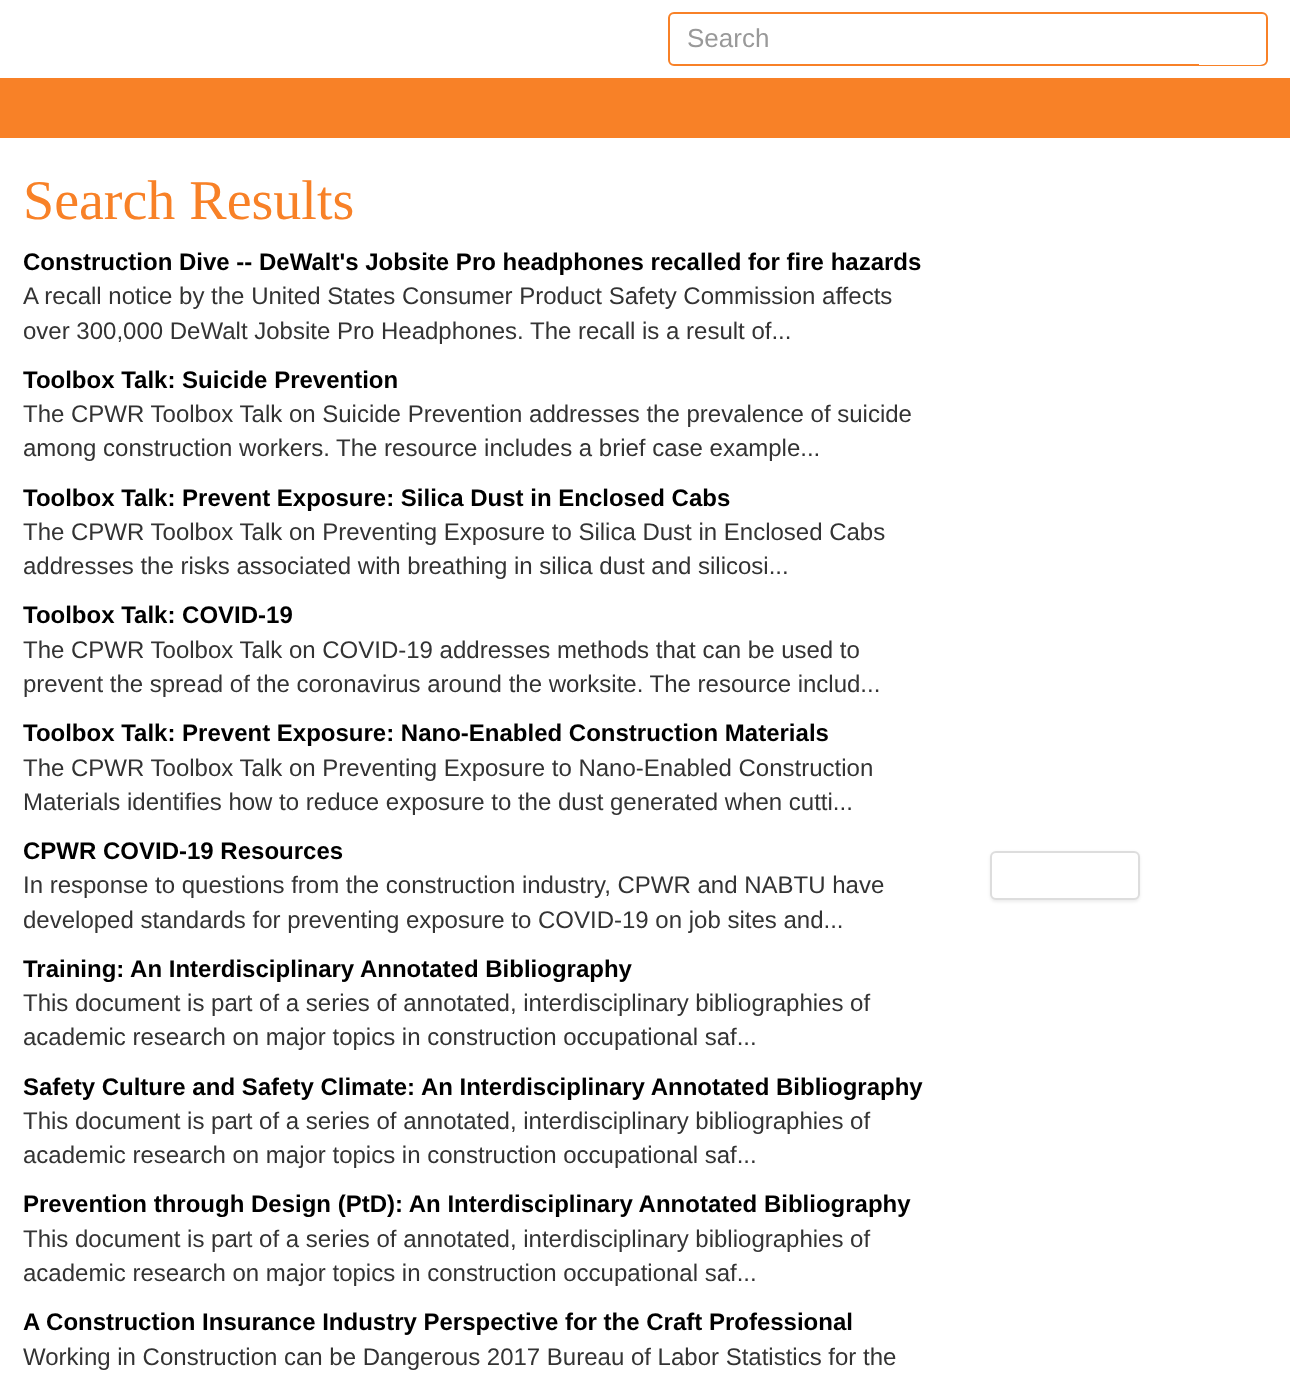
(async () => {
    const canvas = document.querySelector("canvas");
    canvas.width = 1290;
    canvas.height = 1388;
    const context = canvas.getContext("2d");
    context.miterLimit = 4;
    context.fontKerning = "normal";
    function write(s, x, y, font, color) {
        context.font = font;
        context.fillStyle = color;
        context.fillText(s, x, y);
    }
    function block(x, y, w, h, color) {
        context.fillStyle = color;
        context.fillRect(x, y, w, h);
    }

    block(0, 0, 1290, 1388, "rgb(255, 255, 255)");
    context.beginPath();
    context.roundRect(669, 13, 598, 52, 5);
    context.strokeStyle = "rgb(248, 129, 39)";
    context.lineWidth = 2;
    context.stroke();
    write("Search", 687, 47, "26px Liberation Sans", "rgb(153, 153, 153)");
    context.fillStyle = "rgb(255, 255, 255)";
    context.beginPath();
    context.roundRect(1199, 14, 67, 51, [0, 6, 6, 0]);
    context.fill();
    block(0, 78, 1290, 60, "rgb(248, 129, 39)");
    write("Search Results", 23, 219, "56px Liberation Serif", "rgb(248, 129, 39)");
    write("Construction Dive -- DeWalt's Jobsite Pro headphones recalled for fire hazards", 23, 270, "bold 24px Liberation Sans", "rgb(0, 0, 0)");
    write("A recall notice by the United States Consumer Product Safety Commission affects", 23, 304, "24px Liberation Sans", "rgb(51, 51, 51)");
    write("over 300,000 DeWalt Jobsite Pro Headphones. The recall is a result of...", 23, 339, "24px Liberation Sans", "rgb(51, 51, 51)");
    write("Toolbox Talk: Suicide Prevention", 23, 388, "bold 24px Liberation Sans", "rgb(0, 0, 0)");
    write("The CPWR Toolbox Talk on Suicide Prevention addresses the prevalence of suicide", 23, 422, "24px Liberation Sans", "rgb(51, 51, 51)");
    write("among construction workers. The resource includes a brief case example...", 23, 456, "24px Liberation Sans", "rgb(51, 51, 51)");
    write("Toolbox Talk: Prevent Exposure: Silica Dust in Enclosed Cabs", 23, 506, "bold 24px Liberation Sans", "rgb(0, 0, 0)");
    write("The CPWR Toolbox Talk on Preventing Exposure to Silica Dust in Enclosed Cabs", 23, 540, "24px Liberation Sans", "rgb(51, 51, 51)");
    write("addresses the risks associated with breathing in silica dust and silicosi...", 23, 574, "24px Liberation Sans", "rgb(51, 51, 51)");
    write("Toolbox Talk: COVID-19", 23, 623, "bold 24px Liberation Sans", "rgb(0, 0, 0)");
    write("The CPWR Toolbox Talk on COVID-19 addresses methods that can be used to", 23, 658, "24px Liberation Sans", "rgb(51, 51, 51)");
    write("prevent the spread of the coronavirus around the worksite. The resource includ...", 23, 692, "24px Liberation Sans", "rgb(51, 51, 51)");
    write("Toolbox Talk: Prevent Exposure: Nano-Enabled Construction Materials", 23, 741, "bold 24px Liberation Sans", "rgb(0, 0, 0)");
    write("The CPWR Toolbox Talk on Preventing Exposure to Nano-Enabled Construction", 23, 776, "24px Liberation Sans", "rgb(51, 51, 51)");
    write("Materials identifies how to reduce exposure to the dust generated when cutti...", 23, 810, "24px Liberation Sans", "rgb(51, 51, 51)");
    write("CPWR COVID-19 Resources", 23, 859, "bold 24px Liberation Sans", "rgb(0, 0, 0)");
    write("In response to questions from the construction industry, CPWR and NABTU have", 23, 893, "24px Liberation Sans", "rgb(51, 51, 51)");
    write("developed standards for preventing exposure to COVID-19 on job sites and...", 23, 928, "24px Liberation Sans", "rgb(51, 51, 51)");
    context.fillStyle = "rgba(0, 0, 0, 0.07)";
    context.filter = "blur(1.5px)";
    context.beginPath();
    context.roundRect(990, 852, 150, 50, 6);
    context.fill();
    context.filter = "none";
    context.fillStyle = "rgb(255, 255, 255)";
    context.beginPath();
    context.roundRect(991, 852, 148, 47, 5);
    context.fill();
    context.strokeStyle = "rgb(221, 221, 221)";
    context.stroke();
    write("Training: An Interdisciplinary Annotated Bibliography", 23, 977, "bold 24px Liberation Sans", "rgb(0, 0, 0)");
    write("This document is part of a series of annotated, interdisciplinary bibliographies of", 23, 1011, "24px Liberation Sans", "rgb(51, 51, 51)");
    write("academic research on major topics in construction occupational saf...", 23, 1045, "24px Liberation Sans", "rgb(51, 51, 51)");
    write("Safety Culture and Safety Climate: An Interdisciplinary Annotated Bibliography", 23, 1095, "bold 24px Liberation Sans", "rgb(0, 0, 0)");
    write("This document is part of a series of annotated, interdisciplinary bibliographies of", 23, 1129, "24px Liberation Sans", "rgb(51, 51, 51)");
    write("academic research on major topics in construction occupational saf...", 23, 1163, "24px Liberation Sans", "rgb(51, 51, 51)");
    write("Prevention through Design (PtD): An Interdisciplinary Annotated Bibliography", 23, 1212, "bold 24px Liberation Sans", "rgb(0, 0, 0)");
    write("This document is part of a series of annotated, interdisciplinary bibliographies of", 23, 1247, "24px Liberation Sans", "rgb(51, 51, 51)");
    write("academic research on major topics in construction occupational saf...", 23, 1281, "24px Liberation Sans", "rgb(51, 51, 51)");
    write("A Construction Insurance Industry Perspective for the Craft Professional", 23, 1330, "bold 24px Liberation Sans", "rgb(0, 0, 0)");
    write("Working in Construction can be Dangerous 2017 Bureau of Labor Statistics for the", 23, 1365, "24px Liberation Sans", "rgb(51, 51, 51)");
})();
